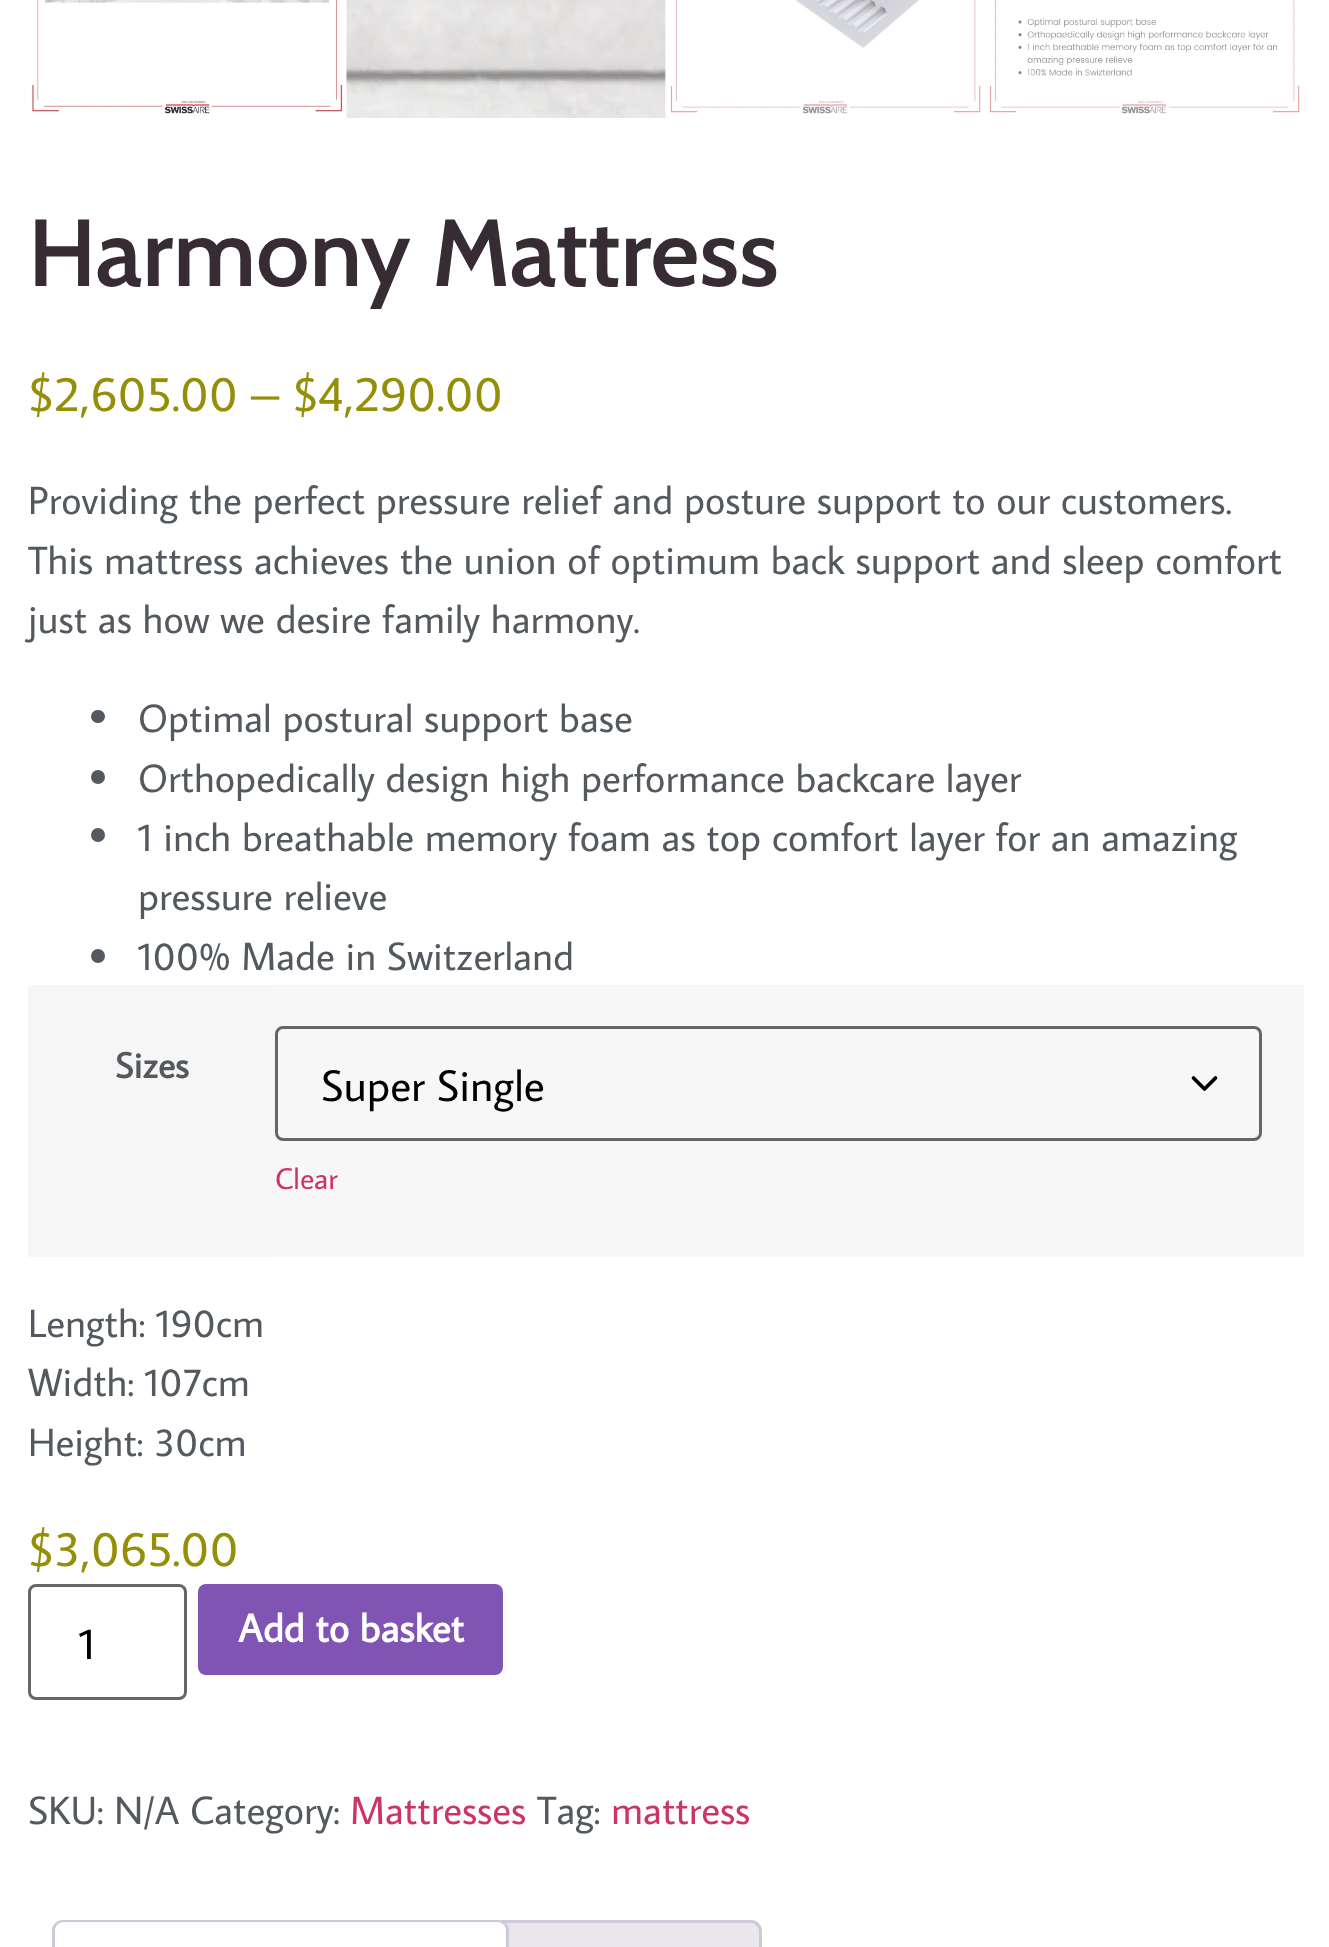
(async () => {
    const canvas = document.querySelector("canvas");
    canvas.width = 1329;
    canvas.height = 1947;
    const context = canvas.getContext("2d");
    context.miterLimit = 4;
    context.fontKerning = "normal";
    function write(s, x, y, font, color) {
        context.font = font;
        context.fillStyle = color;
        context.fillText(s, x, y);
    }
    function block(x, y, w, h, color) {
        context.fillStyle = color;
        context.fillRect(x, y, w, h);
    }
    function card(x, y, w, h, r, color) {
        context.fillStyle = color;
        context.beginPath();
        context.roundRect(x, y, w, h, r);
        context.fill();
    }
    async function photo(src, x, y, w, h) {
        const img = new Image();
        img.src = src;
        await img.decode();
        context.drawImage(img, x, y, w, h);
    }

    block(0, 0, 1329, 1947, "rgb(255, 255, 255)");
    await photo("media/1.png", 31, 0, 312, 114);
    await photo("media/2.png", 346, 0, 320, 118);
    await photo("media/3.png", 665, 0, 316, 114);
    await photo("media/4.png", 989, 0, 311, 114);
    write("Harmony Mattress", 28, 286, "600 95px Cabin", "rgb(55, 43, 52)");
    write("$2,605.00 – $4,290.00", 28, 411, "49.5px Average Sans", "rgb(149, 142, 9)");
    write("Providing the perfect pressure relief and posture support to our customers.", 28, 514, "39.6px Average Sans", "rgb(84, 89, 95)");
    write("This mattress achieves the union of optimum back support and sleep comfort", 28, 574, "39.6px Average Sans", "rgb(84, 89, 95)");
    write("just as how we desire family harmony.", 28, 633, "39.6px Average Sans", "rgb(84, 89, 95)");
    card(91, 710, 14, 13, 6.5, "rgb(84, 89, 95)");
    write("Optimal postural support base", 138, 732, "39.6px Average Sans", "rgb(84, 89, 95)");
    context.beginPath();
    context.arc(98, 777, 7, 0, Math.PI * 2);
    context.fill();
    write("Orthopedically design high performance backcare layer", 138, 792, "39.6px Average Sans", "rgb(84, 89, 95)");
    context.beginPath();
    context.arc(98, 835, 7, 0, Math.PI * 2);
    context.fill();
    write("1 inch breathable memory foam as top comfort layer for an amazing", 138, 851, "39.6px Average Sans", "rgb(84, 89, 95)");
    write("pressure relieve", 138, 910, "39.6px Average Sans", "rgb(84, 89, 95)");
    context.beginPath();
    context.arc(98, 956, 7, 0, Math.PI * 2);
    context.fill();
    write("100% Made in Switzerland", 138, 970, "39.6px Average Sans", "rgb(84, 89, 95)");
    block(28, 985, 247, 272, "rgb(246, 246, 246)");
    write("Sizes", 115, 1078, "bold 36px Average Sans", "rgb(84, 89, 95)");
    block(275, 985, 1029, 272, "rgb(247, 247, 247)");
    context.beginPath();
    context.moveTo(1193.5, 1078);
    context.lineTo(1204.5, 1089);
    context.lineTo(1215.5, 1078);
    context.strokeStyle = "rgb(0, 0, 0)";
    context.lineWidth = 3.7;
    context.lineCap = "round";
    context.lineJoin = "round";
    context.stroke();
    context.beginPath();
    context.roundRect(276.5, 1027.5, 984, 112, 6.5);
    context.strokeStyle = "rgb(102, 102, 102)";
    context.lineWidth = 3;
    context.lineJoin = "miter";
    context.stroke();
    write("Super Single", 321, 1101, "44px Average Sans", "rgb(0, 0, 0)");
    write("Clear", 275, 1189, "30px Average Sans", "rgb(204, 51, 102)");
    write("Length: 190cm", 28, 1337, "39.6px Average Sans", "rgb(84, 89, 95)");
    write("Width: 107cm", 28, 1396, "39.6px Average Sans", "rgb(84, 89, 95)");
    write("Height: 30cm", 28, 1456, "39.6px Average Sans", "rgb(84, 89, 95)");
    write("$3,065.00", 28, 1566, "49.5px Average Sans", "rgb(149, 142, 9)");
    context.beginPath();
    context.roundRect(29.5, 1585.5, 156, 113, 6.5);
    context.stroke();
    write("1", 79, 1659, "44px Average Sans", "rgb(0, 0, 0)");
    card(198, 1584, 305, 91, 8, "rgb(127, 84, 179)");
    write("Add to basket", 238, 1642, "bold 39.6px Average Sans", "rgb(255, 255, 255)");
    write("SKU: N/A Category:", 28, 1824, "39.6px Average Sans", "rgb(84, 89, 95)");
    write("Mattresses", 350, 1824, "39.6px Average Sans", "rgb(204, 51, 102)");
    write("Tag:", 537, 1824, "39.6px Average Sans", "rgb(84, 89, 95)");
    write("mattress", 611, 1824, "39.6px Average Sans", "rgb(204, 51, 102)");
    context.fillStyle = "rgb(233, 230, 237)";
    context.beginPath();
    context.moveTo(501, 1921.5);
    context.lineTo(751, 1921.5);
    context.bezierCurveTo(756, 1921.5, 760.5, 1926, 760.5, 1931);
    context.lineTo(760.5, 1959.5);
    context.lineTo(491.5, 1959.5);
    context.lineTo(491.5, 1931);
    context.bezierCurveTo(491.5, 1926, 496, 1921.5, 501, 1921.5);
    context.closePath();
    context.fill();
    context.strokeStyle = "rgb(207, 200, 216)";
    context.stroke();
    context.fillStyle = "rgb(255, 255, 255)";
    context.beginPath();
    context.moveTo(63, 1920);
    context.lineTo(498, 1920);
    context.bezierCurveTo(504, 1920, 509, 1925, 509, 1931);
    context.lineTo(509, 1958);
    context.lineTo(52, 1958);
    context.lineTo(52, 1931);
    context.bezierCurveTo(52, 1925, 57, 1920, 63, 1920);
    context.closePath();
    context.fill();
    context.fillStyle = "rgb(207, 200, 216)";
    context.beginPath();
    context.moveTo(63, 1920);
    context.bezierCurveTo(60, 1920, 57, 1921, 55, 1923);
    context.lineTo(57, 1925);
    context.bezierCurveTo(59, 1923, 61, 1922, 63, 1922);
    context.lineTo(498, 1922);
    context.bezierCurveTo(500, 1922, 502, 1923, 504, 1925);
    context.lineTo(506, 1923);
    context.bezierCurveTo(504, 1921, 501, 1920, 498, 1920);
    context.closePath();
    context.fill();
    context.beginPath();
    context.moveTo(506, 1923);
    context.bezierCurveTo(507, 1924, 508, 1926, 509, 1928);
    context.lineTo(509, 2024);
    context.lineTo(506, 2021);
    context.lineTo(506, 1930);
    context.bezierCurveTo(506, 1928, 505, 1926, 504, 1925);
    context.closePath();
    context.fill();
    context.beginPath();
    context.moveTo(52, 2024);
    context.lineTo(55, 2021);
    context.lineTo(55, 1930);
    context.bezierCurveTo(55, 1928, 56, 1926, 57, 1925);
    context.lineTo(55, 1923);
    context.bezierCurveTo(54, 1924, 53, 1926, 52, 1928);
    context.closePath();
    context.fill();
})();
